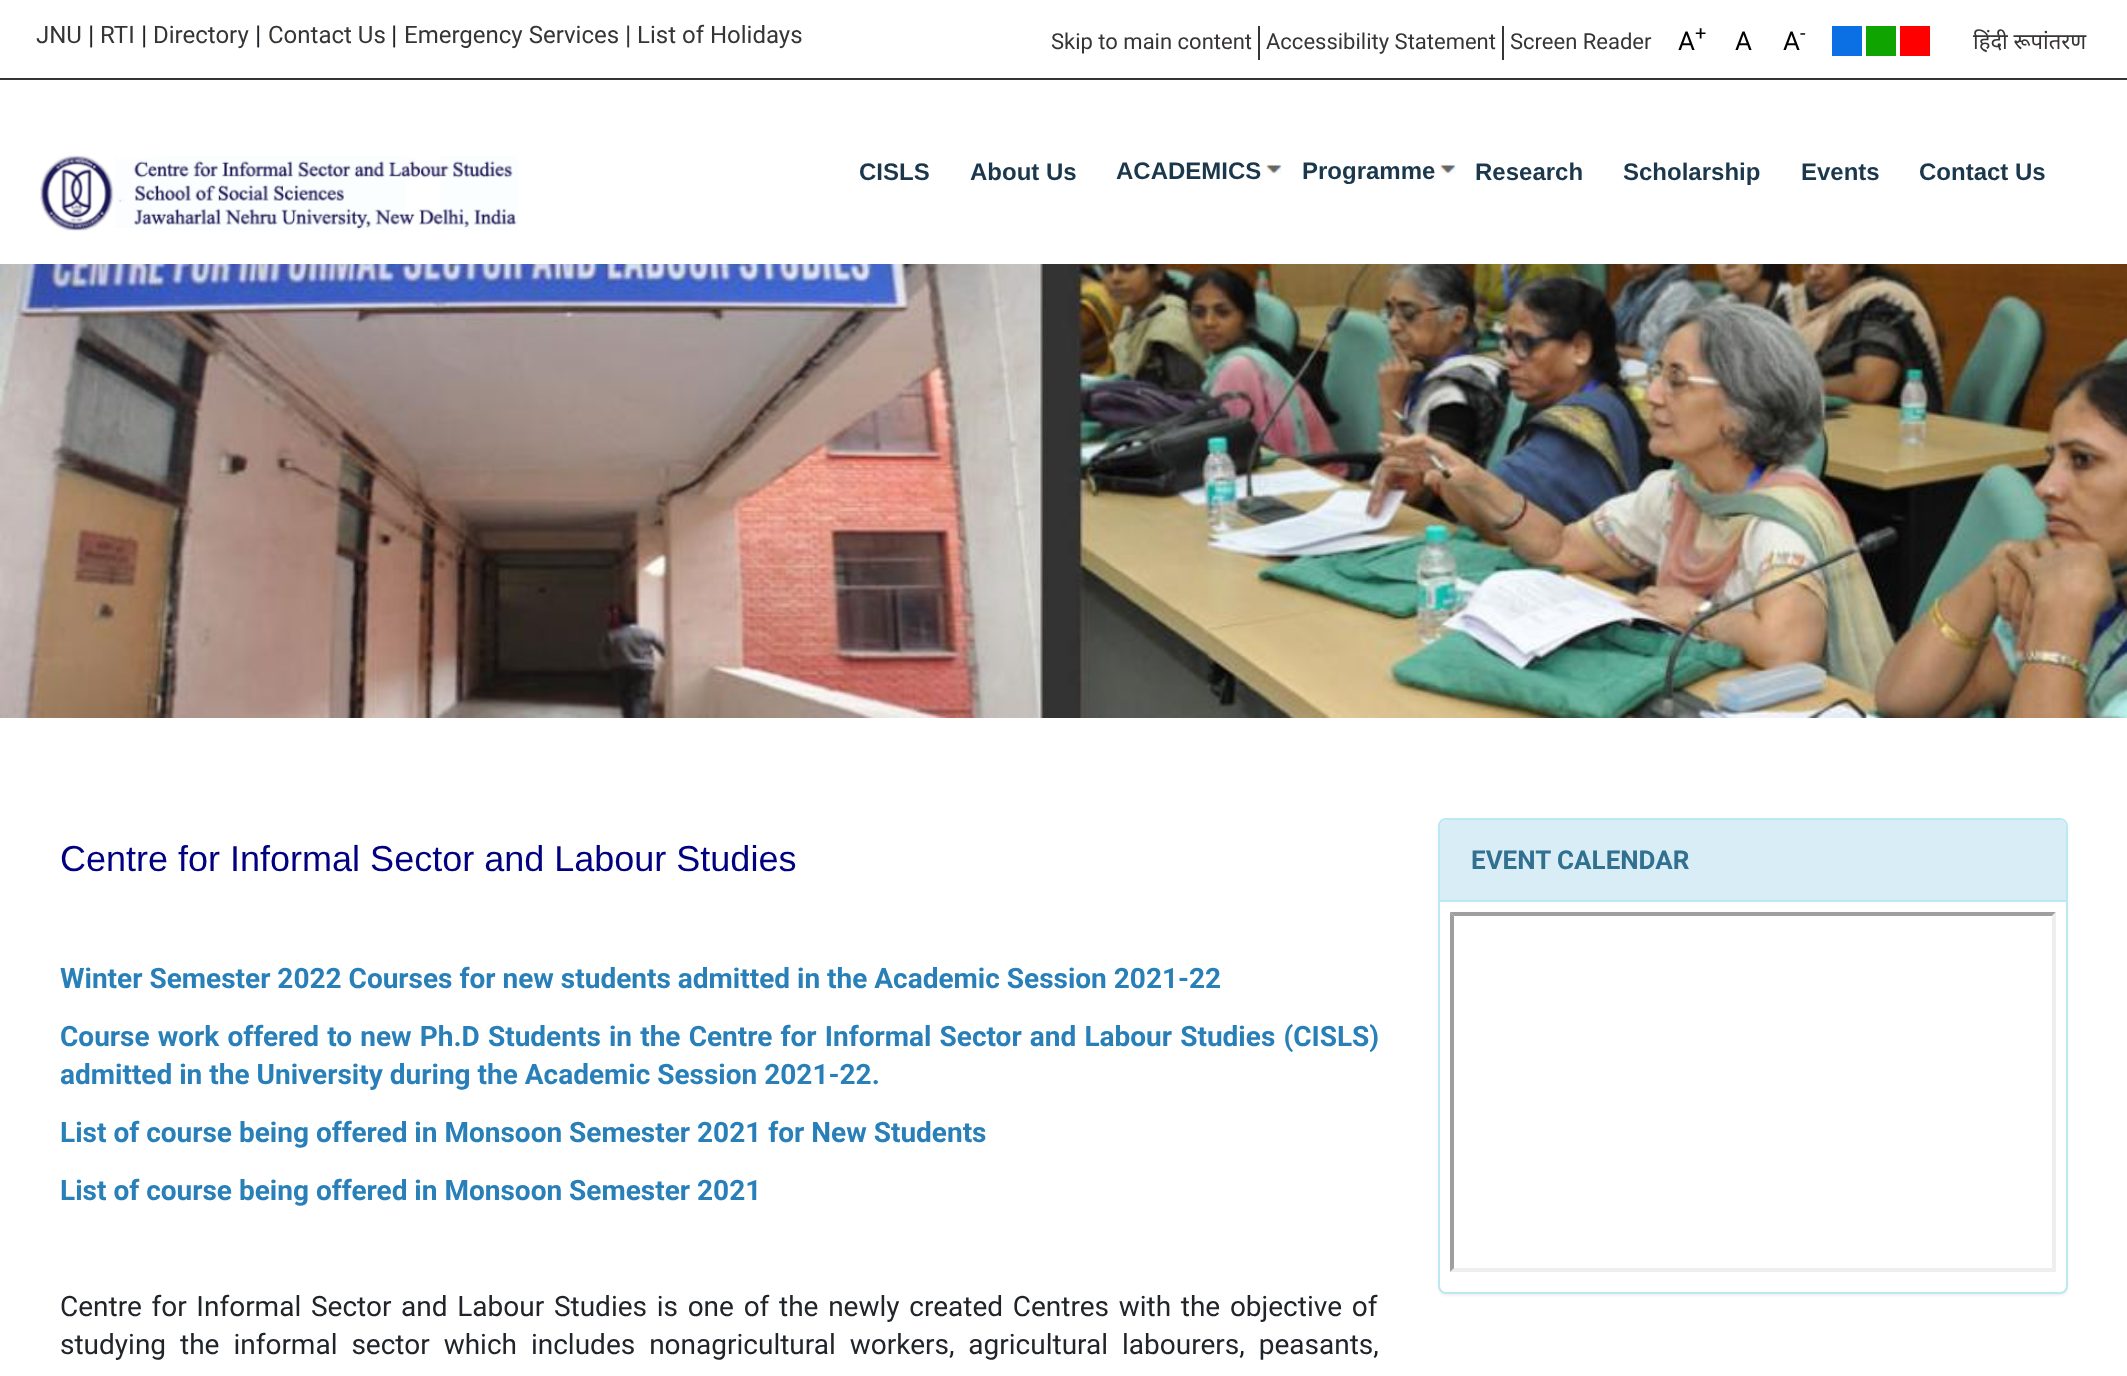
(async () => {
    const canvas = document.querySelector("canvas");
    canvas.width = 2127;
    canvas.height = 1376;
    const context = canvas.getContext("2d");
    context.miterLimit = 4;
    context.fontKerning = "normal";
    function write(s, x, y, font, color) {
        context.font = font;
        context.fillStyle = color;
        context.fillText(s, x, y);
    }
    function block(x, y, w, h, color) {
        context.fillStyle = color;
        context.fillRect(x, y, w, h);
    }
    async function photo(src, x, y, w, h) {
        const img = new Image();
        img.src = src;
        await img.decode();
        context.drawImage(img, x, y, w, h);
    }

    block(0, 0, 2127, 1376, "rgb(255, 255, 255)");
    block(0, 78, 2127, 2, "rgb(55, 52, 52)");
    write("JNU", 36, 43, "24px Roboto", "rgb(55, 52, 52)");
    write("|", 88, 44, "26px Roboto", "rgb(33, 37, 41)");
    write("RTI", 100, 43, "24px Roboto", "rgb(55, 52, 52)");
    write("|", 141, 44, "26px Roboto", "rgb(33, 37, 41)");
    write("Directory", 153, 43, "24px Roboto", "rgb(55, 52, 52)");
    write("|", 255, 44, "26px Roboto", "rgb(33, 37, 41)");
    write("Contact Us", 268, 43, "24px Roboto", "rgb(55, 52, 52)");
    write("|", 391, 44, "26px Roboto", "rgb(33, 37, 41)");
    write("Emergency Services", 404, 43, "24px Roboto", "rgb(55, 52, 52)");
    write("|", 625, 44, "26px Roboto", "rgb(55, 52, 52)");
    write("List of Holidays", 637, 43, "24px Roboto", "rgb(55, 52, 52)");
    block(1258, 26, 2, 34, "rgb(55, 52, 52)");
    write("Skip to main content", 1051, 49, "22px Roboto", "rgb(55, 52, 52)");
    block(1502, 26, 2, 34, "rgb(55, 52, 52)");
    write("Accessibility Statement", 1266, 49, "22px Roboto", "rgb(55, 52, 52)");
    write("Screen Reader", 1510, 49, "22px Roboto", "rgb(55, 52, 52)");
    write("A", 1678, 50, "26px Roboto", "rgb(0, 0, 0)");
    write("+", 1695, 40, "20px Roboto", "rgb(0, 0, 0)");
    write("A", 1735, 50, "26px Roboto", "rgb(0, 0, 0)");
    write("A", 1783, 50, "26px Roboto", "rgb(0, 0, 0)");
    write("-", 1800, 40, "20px Roboto", "rgb(0, 0, 0)");
    block(1832, 26, 30, 30, "rgb(10, 112, 227)");
    block(1866, 26, 30, 30, "rgb(15, 164, 0)");
    block(1900, 26, 30, 30, "rgb(255, 0, 0)");
    write("हिंदी रूपांतरण", 1973, 49, "22px Noto Sans", "rgb(55, 52, 52)");
    await photo("media/1.png", 40, 155, 478, 76);
    write("CISLS", 859, 180, "bold 24px Liberation Sans", "rgb(27, 55, 76)");
    write("About Us", 970, 180, "bold 24px Liberation Sans", "rgb(27, 55, 76)");
    write("ACADEMICS", 1116, 179, "bold 24px Liberation Sans", "rgb(27, 55, 76)");
    await photo("media/2.png", 1266, 164, 16, 10);
    write("Programme", 1302, 179, "bold 24px Liberation Sans", "rgb(27, 55, 76)");
    await photo("media/2.png", 1440, 164, 16, 10);
    write("Research", 1475, 180, "bold 24px Liberation Sans", "rgb(27, 55, 76)");
    write("Scholarship", 1623, 180, "bold 24px Liberation Sans", "rgb(27, 55, 76)");
    write("Events", 1801, 180, "bold 24px Liberation Sans", "rgb(27, 55, 76)");
    write("Contact Us", 1919, 180, "bold 24px Liberation Sans", "rgb(27, 55, 76)");
    await photo("media/3.png", 0, 264, 2127, 454);
    write("Centre for Informal Sector and Labour Studies", 60, 871, "36px Liberation Sans", "rgb(0, 0, 128)");
    write("Winter Semester 2022 Courses for new students admitted in the Academic Session 2021-22", 60, 988, "bold 28px Roboto", "rgb(41, 128, 185)");
    context.wordSpacing = "1.2px";
    write("Course work offered to new Ph.D Students in the Centre for Informal Sector and Labour Studies (CISLS)", 60, 1046, "bold 28px Roboto", "rgb(41, 128, 185)");
    context.wordSpacing = "0px";
    write("admitted in the University during the Academic Session 2021-22.", 60, 1084, "bold 28px Roboto", "rgb(41, 128, 185)");
    write("List of course being offered in Monsoon Semester 2021 for New Students", 60, 1142, "bold 28px Roboto", "rgb(41, 128, 185)");
    write("List of course being offered in Monsoon Semester 2021", 60, 1200, "bold 28px Roboto", "rgb(41, 128, 185)");
    context.wordSpacing = "2.75px";
    write("Centre for Informal Sector and Labour Studies is one of the newly created Centres with the objective of", 60, 1316, "28px Roboto", "rgb(33, 37, 41)");
    context.wordSpacing = "7px";
    write("studying the informal sector which includes nonagricultural workers, agricultural labourers, peasants,", 60, 1354, "28px Roboto", "rgb(33, 37, 41)");
    context.fillStyle = "rgba(0, 0, 0, 0.05)";
    context.filter = "blur(1px)";
    context.beginPath();
    context.roundRect(1438, 820, 630, 476, 8);
    context.fill();
    context.filter = "none";
    context.fillStyle = "rgb(255, 255, 255)";
    context.beginPath();
    context.roundRect(1439, 819, 628, 474, 7);
    context.fill();
    context.strokeStyle = "rgb(188, 232, 241)";
    context.lineWidth = 2;
    context.stroke();
    context.fillStyle = "rgb(217, 237, 247)";
    context.beginPath();
    context.roundRect(1440, 820, 626, 82, [6, 6, 0, 0]);
    context.fill();
    block(1440, 900, 626, 2, "rgb(188, 232, 241)");
    context.wordSpacing = "0px";
    write("EVENT CALENDAR", 1471, 869, "bold 26px Roboto", "rgb(49, 112, 143)");
    context.fillStyle = "rgb(159, 159, 159)";
    context.beginPath();
    context.moveTo(1450, 912);
    context.lineTo(2056, 912);
    context.lineTo(2052, 916);
    context.lineTo(1454, 916);
    context.closePath();
    context.fill();
    context.fillStyle = "rgb(238, 238, 238)";
    context.beginPath();
    context.moveTo(2056, 912);
    context.lineTo(2056, 1272);
    context.lineTo(2052, 1268);
    context.lineTo(2052, 916);
    context.closePath();
    context.fill();
    context.beginPath();
    context.moveTo(2056, 1272);
    context.lineTo(1450, 1272);
    context.lineTo(1454, 1268);
    context.lineTo(2052, 1268);
    context.closePath();
    context.fill();
    context.fillStyle = "rgb(159, 159, 159)";
    context.beginPath();
    context.moveTo(1450, 1272);
    context.lineTo(1450, 912);
    context.lineTo(1454, 916);
    context.lineTo(1454, 1268);
    context.closePath();
    context.fill();
})();
